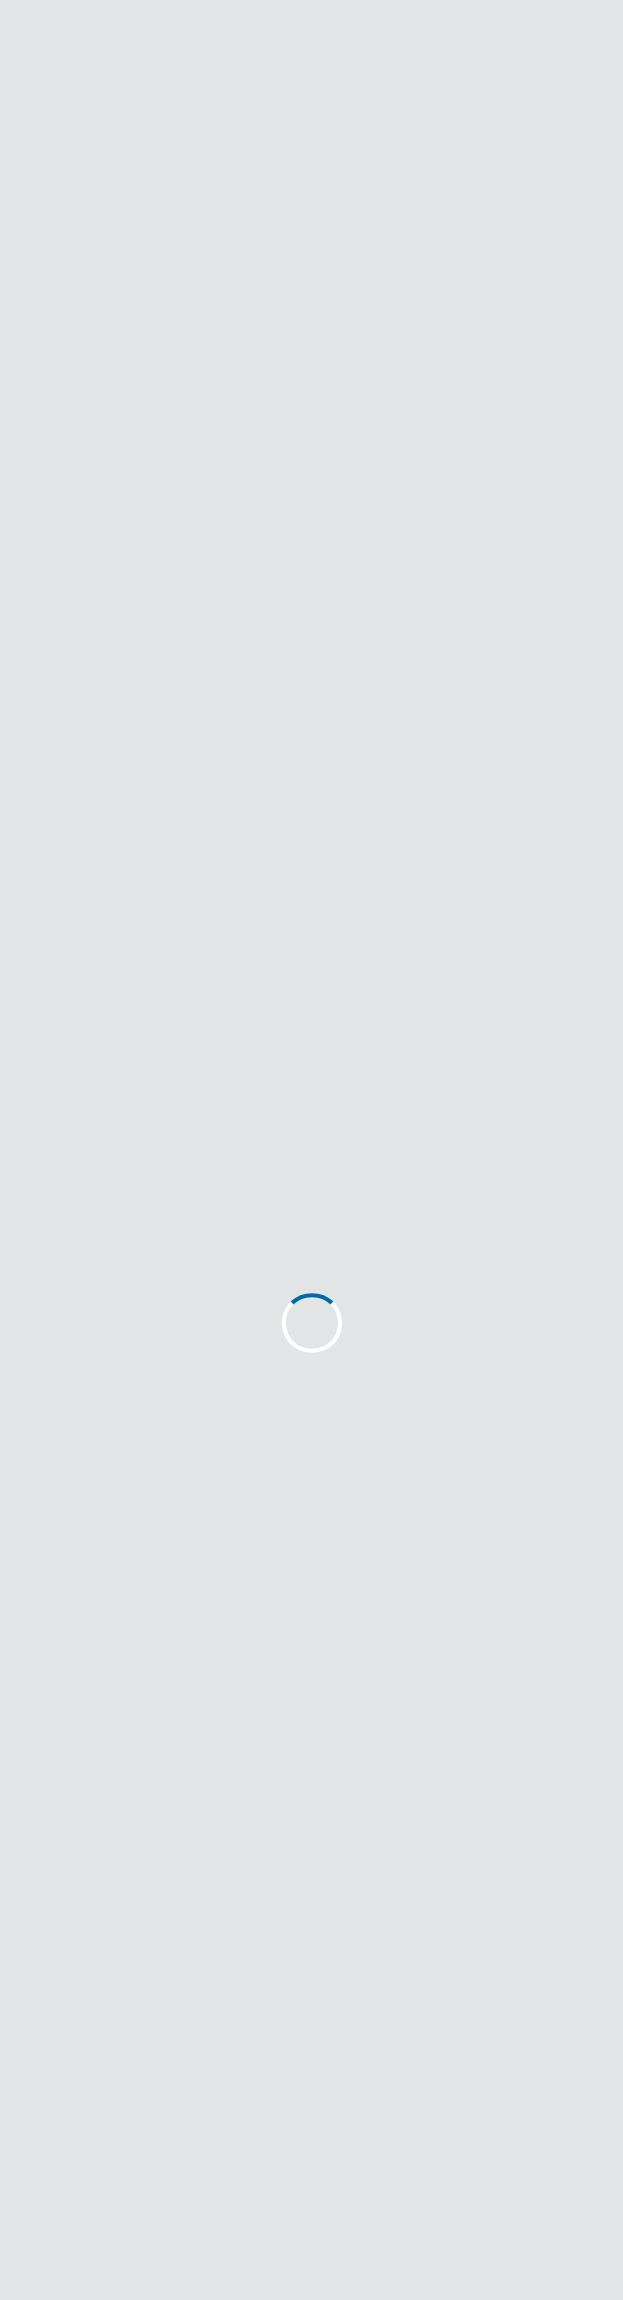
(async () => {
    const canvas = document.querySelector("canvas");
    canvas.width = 623;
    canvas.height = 2300;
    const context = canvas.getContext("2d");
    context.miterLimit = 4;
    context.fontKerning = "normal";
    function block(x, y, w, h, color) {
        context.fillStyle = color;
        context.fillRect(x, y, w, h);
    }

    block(0, 0, 623, 2300, "rgb(226, 229, 230)");
    context.beginPath();
    context.moveTo(292, 1303);
    context.bezierCurveTo(303, 1292.5, 321, 1292.5, 332, 1303);
    context.strokeStyle = "rgb(0, 107, 168)";
    context.lineWidth = 4;
    context.stroke();
    context.beginPath();
    context.moveTo(332, 1303);
    context.bezierCurveTo(337, 1308.5, 340, 1315.5, 340, 1323);
    context.bezierCurveTo(340, 1356.5, 291, 1361, 284.5, 1328.5);
    context.bezierCurveTo(282.5, 1319.5, 285.5, 1310, 292, 1303);
    context.strokeStyle = "rgb(255, 255, 255)";
    context.stroke();
})();
